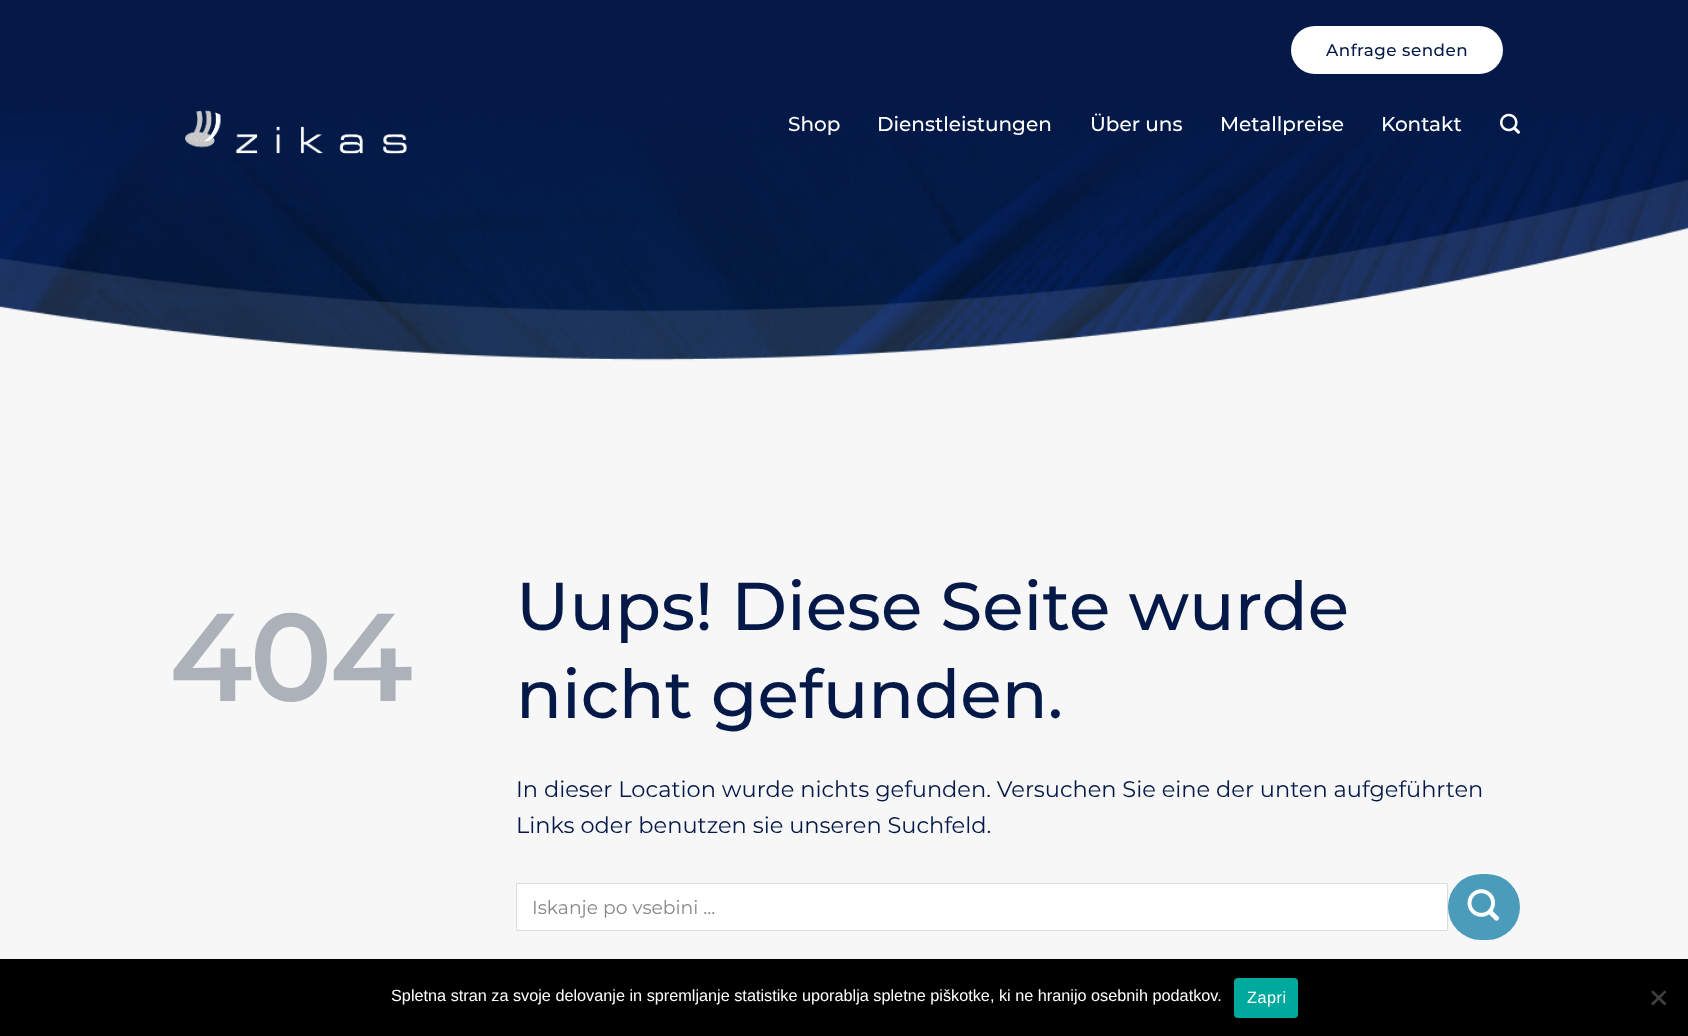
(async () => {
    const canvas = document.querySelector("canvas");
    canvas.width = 1688;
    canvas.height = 1036;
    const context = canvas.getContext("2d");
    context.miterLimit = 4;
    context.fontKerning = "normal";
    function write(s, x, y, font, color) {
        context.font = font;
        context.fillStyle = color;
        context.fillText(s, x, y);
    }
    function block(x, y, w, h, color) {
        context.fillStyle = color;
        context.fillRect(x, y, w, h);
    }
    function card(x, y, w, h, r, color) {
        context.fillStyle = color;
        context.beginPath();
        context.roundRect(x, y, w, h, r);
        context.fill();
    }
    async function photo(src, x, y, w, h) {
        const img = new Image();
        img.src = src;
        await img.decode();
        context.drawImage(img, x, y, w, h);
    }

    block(0, 0, 1688, 1036, "rgb(247, 247, 247)");
    await photo("media/1.png", 0, 0, 1688, 361);
    card(1291, 26, 212, 48, 24, "rgb(255, 255, 255)");
    context.letterSpacing = "0.5px";
    write("Anfrage senden", 1326, 56, "500 16.75px Montserrat", "rgb(4, 25, 72)");
    await photo("media/2.png", 185, 110, 222, 44);
    context.letterSpacing = "0px";
    write("Shop", 788, 131, "500 20px Montserrat", "rgb(255, 255, 255)");
    write("Dienstleistungen", 877, 131, "500 20px Montserrat", "rgb(255, 255, 255)");
    write("Über uns", 1090, 131, "500 20px Montserrat", "rgb(255, 255, 255)");
    write("Metallpreise", 1220, 131, "500 20px Montserrat", "rgb(255, 255, 255)");
    write("Kontakt", 1381, 131, "500 20px Montserrat", "rgb(255, 255, 255)");
    await photo("media/3.png", 1500, 113, 20, 21);
    write("404", 169, 701, "bold 120px Montserrat", "rgb(173, 177, 185)");
    write("Uups! Diese Seite wurde", 516, 630, "500 67.5px Montserrat", "rgb(4, 25, 72)");
    write("nicht gefunden.", 516, 718, "500 67.5px Montserrat", "rgb(4, 25, 72)");
    write("In dieser Location wurde nichts gefunden. Versuchen Sie eine der unten aufgeführten", 516, 797, "22.5px Montserrat", "rgb(4, 25, 72)");
    write("Links oder benutzen sie unseren Suchfeld.", 516, 833, "22.5px Montserrat", "rgb(4, 25, 72)");
    context.fillStyle = "rgb(255, 255, 255)";
    context.beginPath();
    context.rect(516.5, 883.5, 931, 47);
    context.fill();
    context.strokeStyle = "rgb(221, 221, 221)";
    context.stroke();
    write("Iskanje po vsebini ...", 532, 914, "18.75px Montserrat", "rgb(136, 136, 136)");
    card(1448, 874, 72, 66, 33, "rgb(74, 156, 186)");
    await photo("media/4.png", 1467, 889, 32, 32);
    block(0, 959, 1688, 77, "rgb(0, 0, 0)");
    write("Spletna stran za svoje delovanje in spremljanje statistike uporablja spletne piškotke, ki ne hranijo osebnih podatkov.", 391, 1001, "16.25px Liberation Sans", "rgb(255, 255, 255)");
    card(1234, 978, 64, 40, 4, "rgb(0, 169, 157)");
    context.letterSpacing = "0.5px";
    write("Zapri", 1247, 1003, "16.25px Liberation Sans", "rgb(255, 255, 255)");
    context.fillStyle = "rgb(64, 64, 64)";
    context.beginPath();
    context.moveTo(1664.5, 990.5);
    context.lineTo(1666.5, 992);
    context.lineTo(1653, 1005.5);
    context.lineTo(1651, 1003.5);
    context.closePath();
    context.fill();
    context.beginPath();
    context.moveTo(1651, 992);
    context.lineTo(1653, 990.5);
    context.lineTo(1666.5, 1003.5);
    context.lineTo(1664.5, 1005.5);
    context.closePath();
    context.fill();
})();
